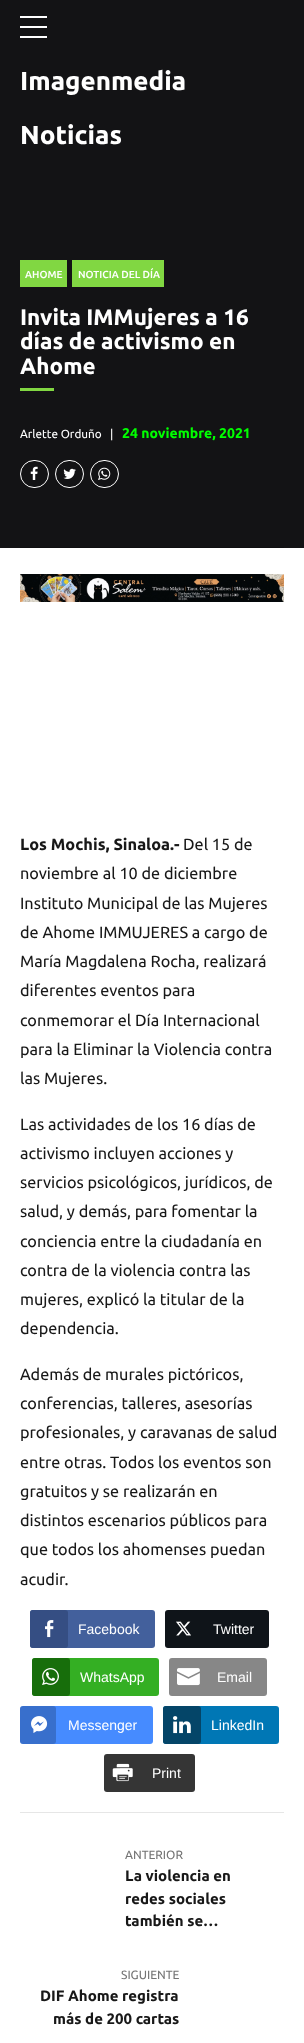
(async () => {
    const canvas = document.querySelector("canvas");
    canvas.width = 304;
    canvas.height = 2043;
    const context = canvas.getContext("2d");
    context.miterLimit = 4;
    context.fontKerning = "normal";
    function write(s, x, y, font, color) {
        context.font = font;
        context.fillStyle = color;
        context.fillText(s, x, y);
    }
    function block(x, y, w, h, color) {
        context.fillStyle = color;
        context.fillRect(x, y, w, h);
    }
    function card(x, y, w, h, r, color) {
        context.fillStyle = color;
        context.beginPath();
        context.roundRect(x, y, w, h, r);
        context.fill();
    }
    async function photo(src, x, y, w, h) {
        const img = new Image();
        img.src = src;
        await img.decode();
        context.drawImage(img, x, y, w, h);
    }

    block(0, 0, 304, 2043, "rgb(255, 255, 255)");
    block(0, 0, 304, 548, "rgb(19, 19, 21)");
    block(20, 16, 27, 2, "rgb(255, 255, 255)");
    block(20, 26, 27, 2, "rgb(255, 255, 255)");
    block(20, 36, 27, 2, "rgb(255, 255, 255)");
    write("Imagenmedia", 20, 90, "bold 26px Ubuntu", "rgb(255, 255, 255)");
    write("Noticias", 20, 144, "bold 26px Ubuntu", "rgb(255, 255, 255)");
    block(20, 547, 264, 1, "rgb(15, 15, 17)");
    block(20, 260, 47, 27, "rgb(129, 215, 66)");
    write("AHOME", 25, 278, "500 10.25px Ubuntu", "rgb(255, 255, 255)");
    block(72, 260, 92, 27, "rgb(129, 215, 66)");
    write("NOTICIA DEL DÍA", 78, 278, "500 10.25px Ubuntu", "rgb(255, 255, 255)");
    write("Invita IMMujeres a 16", 20, 325, "bold 22.5px Ubuntu", "rgb(255, 255, 255)");
    write("días de activismo en", 20, 349, "bold 22.5px Ubuntu", "rgb(255, 255, 255)");
    write("Ahome", 20, 374, "bold 22.5px Ubuntu", "rgb(255, 255, 255)");
    block(20, 388, 34, 3, "rgb(129, 215, 66)");
    write("Arlette Orduño", 20, 438, "11.75px Ubuntu", "rgb(255, 255, 255)");
    write("|", 110, 438, "11.75px Ubuntu", "rgb(255, 255, 255)");
    write("24 noviembre, 2021", 122, 438, "bold 14px Ubuntu", "rgb(0, 255, 0)");
    context.beginPath();
    context.roundRect(20.5, 460.5, 28, 27, 13.5);
    context.strokeStyle = "rgb(255, 255, 255)";
    context.stroke();
    await photo("media/1.png", 30, 466, 8, 14);
    context.beginPath();
    context.roundRect(55.5, 460.5, 28, 27, 13.5);
    context.stroke();
    await photo("media/2.png", 63, 468, 13, 11);
    context.beginPath();
    context.roundRect(90.5, 460.5, 28, 27, 13.5);
    context.stroke();
    await photo("media/3.png", 98, 467, 13, 13);
    await photo("media/4.png", 20, 574, 264, 28);
    write("Los Mochis, Sinaloa.-", 20, 850, "bold 16.25px Ubuntu", "rgb(24, 24, 24)");
    write("Del 15 de", 183, 850, "16.25px Ubuntu", "rgb(24, 24, 24)");
    write("noviembre al 10 de diciembre", 20, 879, "16.25px Ubuntu", "rgb(24, 24, 24)");
    write("Instituto Municipal de las Mujeres", 20, 909, "16.25px Ubuntu", "rgb(24, 24, 24)");
    write("de Ahome IMMUJERES a cargo de", 20, 938, "16.25px Ubuntu", "rgb(24, 24, 24)");
    write("María Magdalena Rocha, realizará", 20, 967, "16.25px Ubuntu", "rgb(24, 24, 24)");
    write("diferentes eventos para", 20, 996, "16.25px Ubuntu", "rgb(24, 24, 24)");
    write("conmemorar el Día Internacional", 20, 1026, "16.25px Ubuntu", "rgb(24, 24, 24)");
    write("para la Eliminar la Violencia contra", 20, 1055, "16.25px Ubuntu", "rgb(24, 24, 24)");
    write("las Mujeres.", 20, 1084, "16.25px Ubuntu", "rgb(24, 24, 24)");
    write("Las actividades de los 16 días de", 20, 1130, "16.25px Ubuntu", "rgb(24, 24, 24)");
    write("activismo incluyen acciones y", 20, 1159, "16.25px Ubuntu", "rgb(24, 24, 24)");
    write("servicios psicológicos, jurídicos, de", 20, 1188, "16.25px Ubuntu", "rgb(24, 24, 24)");
    write("salud, y demás, para fomentar la", 20, 1217, "16.25px Ubuntu", "rgb(24, 24, 24)");
    write("conciencia entre la ciudadanía en", 20, 1247, "16.25px Ubuntu", "rgb(24, 24, 24)");
    write("contra de la violencia contra las", 20, 1276, "16.25px Ubuntu", "rgb(24, 24, 24)");
    write("mujeres, explicó la titular de la", 20, 1305, "16.25px Ubuntu", "rgb(24, 24, 24)");
    write("dependencia.", 20, 1334, "16.25px Ubuntu", "rgb(24, 24, 24)");
    write("Además de murales pictóricos,", 20, 1380, "16.25px Ubuntu", "rgb(24, 24, 24)");
    write("conferencias, talleres, asesorías", 20, 1409, "16.25px Ubuntu", "rgb(24, 24, 24)");
    write("profesionales, y caravanas de salud", 20, 1438, "16.25px Ubuntu", "rgb(24, 24, 24)");
    write("entre otras. Todos los eventos son", 20, 1468, "16.25px Ubuntu", "rgb(24, 24, 24)");
    write("gratuitos y se realizarán en", 20, 1497, "16.25px Ubuntu", "rgb(24, 24, 24)");
    write("distintos escenarios públicos para", 20, 1526, "16.25px Ubuntu", "rgb(24, 24, 24)");
    write("que todos los ahomenses puedan", 20, 1555, "16.25px Ubuntu", "rgb(24, 24, 24)");
    write("acudir.", 20, 1585, "16.25px Ubuntu", "rgb(24, 24, 24)");
    card(30, 1610, 125, 38, 3, "rgb(67, 96, 156)");
    card(30, 1610, 38, 38, 3, "rgb(53, 78, 131)");
    await photo("media/5.png", 45, 1620, 9, 18);
    write("Facebook", 78, 1634, "14px Liberation Sans", "rgb(255, 255, 255)");
    card(165, 1610, 104, 38, 3, "rgb(15, 20, 25)");
    await photo("media/6.png", 176, 1621, 15, 15);
    write("Twitter", 213, 1634, "14px Liberation Sans", "rgb(255, 255, 255)");
    card(32, 1658, 127, 38, 3, "rgb(52, 175, 35)");
    card(32, 1658, 38, 38, 3, "rgb(23, 110, 11)");
    await photo("media/7.png", 42, 1668, 17, 17);
    write("WhatsApp", 80, 1682, "14px Liberation Sans", "rgb(255, 255, 255)");
    card(169, 1658, 98, 38, 3, "rgb(135, 135, 135)");
    await photo("media/8.png", 177, 1668, 23, 18);
    write("Email", 217, 1682, "14px Liberation Sans", "rgb(255, 255, 255)");
    card(20, 1706, 133, 38, 3, "rgb(70, 139, 255)");
    card(20, 1706, 36, 38, 3, "rgba(0, 0, 0, 0.2)");
    await photo("media/9.png", 31, 1716, 17, 17);
    write("Messenger", 68, 1730, "14px Liberation Sans", "rgb(255, 255, 255)");
    card(163, 1706, 116, 38, 3, "rgb(0, 119, 181)");
    card(163, 1706, 38, 38, 3, "rgb(4, 69, 104)");
    await photo("media/10.png", 173, 1716, 18, 18);
    write("LinkedIn", 211, 1730, "14px Liberation Sans", "rgb(255, 255, 255)");
    card(104, 1754, 91, 38, 3, "rgb(53, 53, 53)");
    await photo("media/11.png", 112, 1763, 21, 19);
    write("Print", 152, 1778, "14px Liberation Sans", "rgb(255, 255, 255)");
    block(20, 1812, 264, 1, "rgb(230, 230, 230)");
    write("ANTERIOR", 125, 1859, "12px Ubuntu", "rgb(116, 116, 116)");
    write("La violencia en", 125, 1881, "bold 15px Ubuntu", "rgb(24, 24, 24)");
    write("redes sociales", 125, 1904, "bold 15px Ubuntu", "rgb(24, 24, 24)");
    write("también se…", 125, 1926, "bold 15px Ubuntu", "rgb(24, 24, 24)");
    write("SIGUIENTE", 121, 1979, "12px Ubuntu", "rgb(116, 116, 116)");
    write("DIF Ahome registra", 40, 2001, "bold 15px Ubuntu", "rgb(24, 24, 24)");
    write("más de 200 cartas", 53, 2024, "bold 15px Ubuntu", "rgb(24, 24, 24)");
})();
